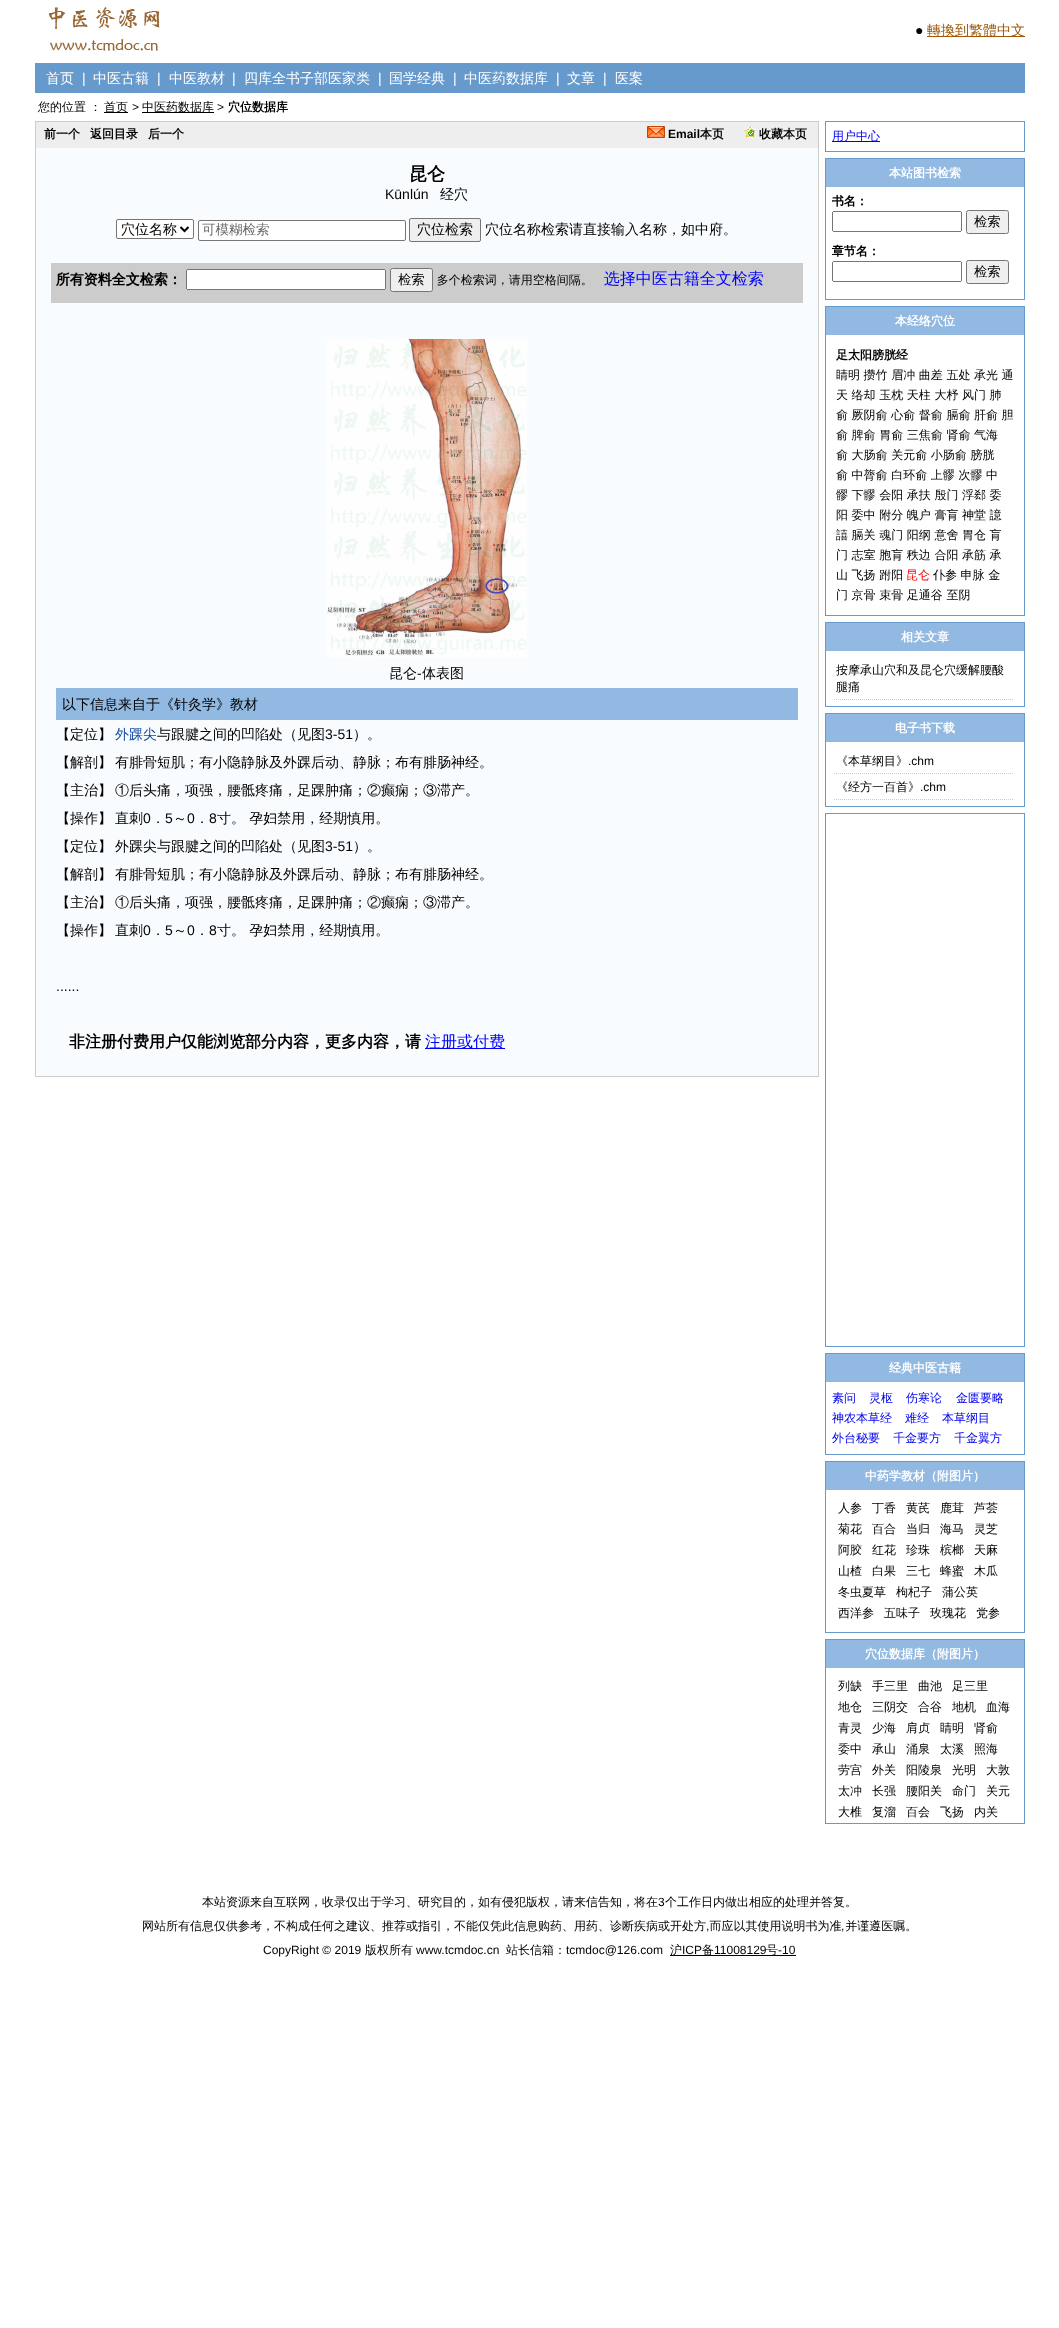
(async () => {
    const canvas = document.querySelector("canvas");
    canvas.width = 1059;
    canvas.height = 2328;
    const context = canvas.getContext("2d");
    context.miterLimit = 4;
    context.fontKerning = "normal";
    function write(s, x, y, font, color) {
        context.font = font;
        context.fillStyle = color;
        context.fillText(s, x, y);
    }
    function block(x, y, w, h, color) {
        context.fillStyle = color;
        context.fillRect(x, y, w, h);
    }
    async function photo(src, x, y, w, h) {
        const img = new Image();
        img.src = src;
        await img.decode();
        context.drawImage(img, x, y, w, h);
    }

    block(0, 0, 1059, 2328, "rgb(255, 255, 255)");
    await photo("media/1.png", 48, 7, 112, 49);
    write("●", 915, 35, "14px Liberation Sans", "rgb(0, 0, 0)");
    block(927, 36, 98, 1, "rgb(160, 88, 4)");
    write("轉換到繁體中文", 927, 35, "500 14px WenQuanYi Zen Hei", "rgb(160, 88, 4)");
    block(35, 63, 990, 30, "rgb(102, 153, 204)");
    write("首页", 46, 83, "500 14px WenQuanYi Zen Hei", "rgb(255, 255, 255)");
    write("|", 82, 83, "14px Liberation Sans", "rgb(255, 255, 255)");
    write("中医古籍", 93, 83, "500 14px WenQuanYi Zen Hei", "rgb(255, 255, 255)");
    write("|", 157, 83, "14px Liberation Sans", "rgb(255, 255, 255)");
    write("中医教材", 169, 83, "500 14px WenQuanYi Zen Hei", "rgb(255, 255, 255)");
    write("|", 232, 83, "14px Liberation Sans", "rgb(255, 255, 255)");
    write("四库全书子部医家类", 244, 83, "500 14px WenQuanYi Zen Hei", "rgb(255, 255, 255)");
    write("|", 378, 83, "14px Liberation Sans", "rgb(255, 255, 255)");
    write("国学经典", 389, 83, "500 14px WenQuanYi Zen Hei", "rgb(255, 255, 255)");
    write("|", 453, 83, "14px Liberation Sans", "rgb(255, 255, 255)");
    write("中医药数据库", 464, 83, "500 14px WenQuanYi Zen Hei", "rgb(255, 255, 255)");
    write("|", 556, 83, "14px Liberation Sans", "rgb(255, 255, 255)");
    write("文章", 567, 83, "500 14px WenQuanYi Zen Hei", "rgb(255, 255, 255)");
    write("|", 603, 83, "14px Liberation Sans", "rgb(255, 255, 255)");
    write("医案", 615, 83, "500 14px WenQuanYi Zen Hei", "rgb(255, 255, 255)");
    write("您的位置 ：", 38, 111, "500 12px WenQuanYi Zen Hei", "rgb(0, 0, 0)");
    block(104, 112, 24, 1, "rgb(0, 0, 0)");
    write("首页", 104, 111, "500 12px WenQuanYi Zen Hei", "rgb(0, 0, 0)");
    write(">", 132, 111, "12px Liberation Sans", "rgb(0, 0, 0)");
    block(142, 112, 72, 1, "rgb(0, 0, 0)");
    write("中医药数据库", 142, 111, "500 12px WenQuanYi Zen Hei", "rgb(0, 0, 0)");
    write(">", 217, 111, "12px Liberation Sans", "rgb(0, 0, 0)");
    write("穴位数据库", 228, 111, "bold 12px WenQuanYi Zen Hei", "rgb(0, 0, 0)");
    block(36, 148, 782, 928, "rgb(248, 252, 255)");
    context.strokeStyle = "rgb(204, 204, 204)";
    context.strokeRect(35.5, 121.5, 783, 955);
    block(36, 122, 782, 26, "rgb(238, 238, 238)");
    write("前一个", 44, 138, "bold 12px WenQuanYi Zen Hei", "rgb(0, 0, 0)");
    write("返回目录", 90, 138, "bold 12px WenQuanYi Zen Hei", "rgb(0, 0, 0)");
    write("后一个", 148, 138, "bold 12px WenQuanYi Zen Hei", "rgb(0, 0, 0)");
    await photo("media/2.png", 647, 126, 18, 12);
    write("Email", 668, 138, "bold 12px Liberation Sans", "rgb(0, 0, 0)");
    write("本页", 700, 138, "bold 12px WenQuanYi Zen Hei", "rgb(0, 0, 0)");
    await photo("media/3.png", 744, 126, 12, 12);
    write("收藏本页", 759, 138, "bold 12px WenQuanYi Zen Hei", "rgb(0, 0, 0)");
    write("昆仑", 409, 180, "bold 18px WenQuanYi Zen Hei", "rgb(0, 0, 0)");
    write("Kūnlún", 385, 199, "14px Liberation Sans", "rgb(0, 0, 0)");
    write("经穴", 440, 199, "500 14px WenQuanYi Zen Hei", "rgb(0, 0, 0)");
    context.fillStyle = "rgb(255, 255, 255)";
    context.beginPath();
    context.roundRect(116.5, 219.5, 77, 19, 1.5);
    context.fill();
    context.strokeStyle = "rgb(118, 118, 118)";
    context.stroke();
    context.beginPath();
    context.moveTo(180.5, 227);
    context.lineTo(184.5, 231);
    context.lineTo(188.5, 227);
    context.strokeStyle = "rgb(0, 0, 0)";
    context.lineWidth = 2;
    context.stroke();
    write("穴位名称", 121, 234, "500 14px WenQuanYi Zen Hei", "rgb(0, 0, 0)");
    context.fillStyle = "rgb(255, 255, 255)";
    context.beginPath();
    context.roundRect(198.5, 220.5, 207, 20, 1.5);
    context.fill();
    context.strokeStyle = "rgb(118, 118, 118)";
    context.lineWidth = 1;
    context.stroke();
    write("可模糊检索", 202, 234, "500 13.5px WenQuanYi Zen Hei", "rgb(102, 102, 102)");
    context.fillStyle = "rgb(239, 239, 239)";
    context.beginPath();
    context.roundRect(409.5, 218.5, 71, 23, 1.5);
    context.fill();
    context.stroke();
    write("穴位检索", 417, 234, "500 14px WenQuanYi Zen Hei", "rgb(0, 0, 0)");
    write("穴位名称检索请直接输入名称，如中府。", 485, 234, "500 14px WenQuanYi Zen Hei", "rgb(0, 0, 0)");
    block(51, 263, 752, 40, "rgb(204, 204, 204)");
    await photo("media/4.png", 56, 268, 707, 24);
    await photo("media/5.png", 327, 339, 200, 319);
    write("昆仑", 389, 678, "500 14px WenQuanYi Zen Hei", "rgb(0, 0, 0)");
    write("-", 417, 678, "14px Liberation Sans", "rgb(0, 0, 0)");
    write("体表图", 422, 678, "500 14px WenQuanYi Zen Hei", "rgb(0, 0, 0)");
    block(56, 688, 742, 32, "rgb(145, 185, 226)");
    write("以下信息来自于《针灸学》教材", 62, 709, "500 14px WenQuanYi Zen Hei", "rgb(0, 0, 0)");
    write("【定位】", 56, 739, "500 14px WenQuanYi Zen Hei", "rgb(0, 0, 0)");
    write("外踝尖", 115, 739, "500 14px WenQuanYi Zen Hei", "rgb(21, 75, 160)");
    write("与跟腱之间的凹陷处（见图", 157, 739, "500 14px WenQuanYi Zen Hei", "rgb(0, 0, 0)");
    write("3-51", 325, 739, "14px Liberation Sans", "rgb(0, 0, 0)");
    write("）。", 353, 739, "500 14px WenQuanYi Zen Hei", "rgb(0, 0, 0)");
    write("【解剖】", 56, 767, "500 14px WenQuanYi Zen Hei", "rgb(0, 0, 0)");
    write("有腓骨短肌；有小隐静脉及外踝后动、静脉；布有腓肠神经。", 115, 767, "500 14px WenQuanYi Zen Hei", "rgb(0, 0, 0)");
    write("【主治】", 56, 795, "500 14px WenQuanYi Zen Hei", "rgb(0, 0, 0)");
    write("①后头痛，项强，腰骶疼痛，足踝肿痛；②癫痫；③滞产。", 115, 795, "500 14px WenQuanYi Zen Hei", "rgb(0, 0, 0)");
    write("【操作】", 56, 823, "500 14px WenQuanYi Zen Hei", "rgb(0, 0, 0)");
    write("直刺", 115, 823, "500 14px WenQuanYi Zen Hei", "rgb(0, 0, 0)");
    write("0", 143, 823, "14px Liberation Sans", "rgb(0, 0, 0)");
    write("5", 165, 823, "14px Liberation Sans", "rgb(0, 0, 0)");
    write("～", 173, 823, "500 14px WenQuanYi Zen Hei", "rgb(0, 0, 0)");
    write("0", 187, 823, "14px Liberation Sans", "rgb(0, 0, 0)");
    write("8", 209, 823, "14px Liberation Sans", "rgb(0, 0, 0)");
    write("寸。 孕妇禁用，经期慎用。", 217, 823, "500 14px WenQuanYi Zen Hei", "rgb(0, 0, 0)");
    write("．", 151, 823, "500 14px WenQuanYi Zen Hei", "rgb(0, 0, 0)");
    write("．", 195, 823, "500 14px WenQuanYi Zen Hei", "rgb(0, 0, 0)");
    write("【定位】", 56, 851, "500 14px WenQuanYi Zen Hei", "rgb(0, 0, 0)");
    write("外踝尖与跟腱之间的凹陷处（见图", 115, 851, "500 14px WenQuanYi Zen Hei", "rgb(0, 0, 0)");
    write("3-51", 325, 851, "14px Liberation Sans", "rgb(0, 0, 0)");
    write("）。", 353, 851, "500 14px WenQuanYi Zen Hei", "rgb(0, 0, 0)");
    write("【解剖】", 56, 879, "500 14px WenQuanYi Zen Hei", "rgb(0, 0, 0)");
    write("有腓骨短肌；有小隐静脉及外踝后动、静脉；布有腓肠神经。", 115, 879, "500 14px WenQuanYi Zen Hei", "rgb(0, 0, 0)");
    write("【主治】", 56, 907, "500 14px WenQuanYi Zen Hei", "rgb(0, 0, 0)");
    write("①后头痛，项强，腰骶疼痛，足踝肿痛；②癫痫；③滞产。", 115, 907, "500 14px WenQuanYi Zen Hei", "rgb(0, 0, 0)");
    write("【操作】", 56, 935, "500 14px WenQuanYi Zen Hei", "rgb(0, 0, 0)");
    write("直刺", 115, 935, "500 14px WenQuanYi Zen Hei", "rgb(0, 0, 0)");
    write("0", 143, 935, "14px Liberation Sans", "rgb(0, 0, 0)");
    write("5", 165, 935, "14px Liberation Sans", "rgb(0, 0, 0)");
    write("～", 173, 935, "500 14px WenQuanYi Zen Hei", "rgb(0, 0, 0)");
    write("0", 187, 935, "14px Liberation Sans", "rgb(0, 0, 0)");
    write("8", 209, 935, "14px Liberation Sans", "rgb(0, 0, 0)");
    write("寸。 孕妇禁用，经期慎用。", 217, 935, "500 14px WenQuanYi Zen Hei", "rgb(0, 0, 0)");
    write("．", 151, 935, "500 14px WenQuanYi Zen Hei", "rgb(0, 0, 0)");
    write("．", 195, 935, "500 14px WenQuanYi Zen Hei", "rgb(0, 0, 0)");
    write("......", 56, 991, "14px Liberation Sans", "rgb(0, 0, 0)");
    write("非注册付费用户仅能浏览部分内容，更多内容，请", 69, 1047, "bold 16px WenQuanYi Zen Hei", "rgb(0, 0, 0)");
    block(425, 1048, 80, 1, "rgb(0, 0, 255)");
    write("注册或付费", 425, 1047, "500 16px WenQuanYi Zen Hei", "rgb(0, 0, 255)");
    context.strokeStyle = "rgb(102, 153, 204)";
    context.strokeRect(825.5, 121.5, 199, 30);
    block(832, 141, 48, 1, "rgb(0, 0, 238)");
    write("用户中心", 832, 140, "500 12px WenQuanYi Zen Hei", "rgb(0, 0, 238)");
    context.strokeRect(825.5, 158.5, 199, 141);
    block(826, 159, 198, 28, "rgb(145, 185, 226)");
    write("本站图书检索", 889, 177, "bold 12px WenQuanYi Zen Hei", "rgb(255, 255, 255)");
    await photo("media/6.png", 832, 194, 177, 40);
    await photo("media/7.png", 832, 244, 177, 40);
    context.strokeRect(825.5, 306.5, 199, 309);
    block(826, 307, 198, 28, "rgb(145, 185, 226)");
    write("本经络穴位", 895, 325, "bold 12px WenQuanYi Zen Hei", "rgb(255, 255, 255)");
    write("足太阳膀胱经", 836, 359, "bold 12px WenQuanYi Zen Hei", "rgb(0, 0, 0)");
    write("睛明 攒竹 眉冲 曲差 五处 承光 通", 836, 379, "500 12px WenQuanYi Zen Hei", "rgb(0, 0, 0)");
    write("天 络却 玉枕 天柱 大杼 风门 肺", 836, 399, "500 12px WenQuanYi Zen Hei", "rgb(0, 0, 0)");
    write("俞 厥阴俞 心俞 督俞 膈俞 肝俞 胆", 836, 419, "500 12px WenQuanYi Zen Hei", "rgb(0, 0, 0)");
    write("俞 脾俞 胃俞 三焦俞 肾俞 气海", 836, 439, "500 12px WenQuanYi Zen Hei", "rgb(0, 0, 0)");
    write("俞 大肠俞 关元俞 小肠俞 膀胱", 836, 459, "500 12px WenQuanYi Zen Hei", "rgb(0, 0, 0)");
    write("俞 中膂俞 白环俞 上髎 次髎 中", 836, 479, "500 12px WenQuanYi Zen Hei", "rgb(0, 0, 0)");
    write("髎 下髎 会阳 承扶 殷门 浮郄 委", 836, 499, "500 12px WenQuanYi Zen Hei", "rgb(0, 0, 0)");
    write("阳 委中 附分 魄户 膏肓 神堂 譩", 836, 519, "500 12px WenQuanYi Zen Hei", "rgb(0, 0, 0)");
    write("譆 膈关 魂门 阳纲 意舍 胃仓 肓", 836, 539, "500 12px WenQuanYi Zen Hei", "rgb(0, 0, 0)");
    write("门 志室 胞肓 秩边 合阳 承筋 承", 836, 559, "500 12px WenQuanYi Zen Hei", "rgb(0, 0, 0)");
    write("山 飞扬 跗阳", 836, 579, "500 12px WenQuanYi Zen Hei", "rgb(0, 0, 0)");
    write("昆仑", 906, 579, "500 12px WenQuanYi Zen Hei", "rgb(255, 0, 0)");
    write("仆参 申脉 金", 933, 579, "500 12px WenQuanYi Zen Hei", "rgb(0, 0, 0)");
    write("门 京骨 束骨 足通谷 至阴", 836, 599, "500 12px WenQuanYi Zen Hei", "rgb(0, 0, 0)");
    context.strokeRect(825.5, 622.5, 199, 84);
    block(826, 623, 198, 28, "rgb(145, 185, 226)");
    write("相关文章", 901, 641, "bold 12px WenQuanYi Zen Hei", "rgb(255, 255, 255)");
    context.beginPath();
    context.moveTo(834, 699.5);
    context.lineTo(1014, 699.5);
    context.strokeStyle = "rgb(204, 204, 204)";
    context.setLineDash([1, 1]);
    context.stroke();
    write("按摩承山穴和及昆仑穴缓解腰酸", 836, 674, "500 12px WenQuanYi Zen Hei", "rgb(0, 0, 0)");
    write("腿痛", 836, 691, "500 12px WenQuanYi Zen Hei", "rgb(0, 0, 0)");
    context.strokeStyle = "rgb(102, 153, 204)";
    context.setLineDash([]);
    context.strokeRect(825.5, 713.5, 199, 93);
    block(826, 714, 198, 28, "rgb(145, 185, 226)");
    write("电子书下载", 895, 732, "bold 12px WenQuanYi Zen Hei", "rgb(255, 255, 255)");
    context.beginPath();
    context.moveTo(834, 773.5);
    context.lineTo(1014, 773.5);
    context.strokeStyle = "rgb(204, 204, 204)";
    context.setLineDash([1, 1]);
    context.stroke();
    write("《本草纲目》", 836, 765, "500 12px WenQuanYi Zen Hei", "rgb(0, 0, 0)");
    write(".chm", 908, 765, "12px Liberation Sans", "rgb(0, 0, 0)");
    context.beginPath();
    context.moveTo(834, 799.5);
    context.lineTo(1014, 799.5);
    context.stroke();
    write("《经方一百首》", 836, 791, "500 12px WenQuanYi Zen Hei", "rgb(0, 0, 0)");
    write(".chm", 920, 791, "12px Liberation Sans", "rgb(0, 0, 0)");
    context.strokeStyle = "rgb(102, 153, 204)";
    context.setLineDash([]);
    context.strokeRect(825.5, 813.5, 199, 533);
    context.strokeRect(825.5, 1353.5, 199, 101);
    block(826, 1354, 198, 28, "rgb(145, 185, 226)");
    write("经典中医古籍", 889, 1372, "bold 12px WenQuanYi Zen Hei", "rgb(255, 255, 255)");
    write("素问", 832, 1402, "500 12px WenQuanYi Zen Hei", "rgb(0, 0, 238)");
    write("灵枢", 869, 1402, "500 12px WenQuanYi Zen Hei", "rgb(0, 0, 238)");
    write("伤寒论", 906, 1402, "500 12px WenQuanYi Zen Hei", "rgb(0, 0, 238)");
    write("金匮要略", 956, 1402, "500 12px WenQuanYi Zen Hei", "rgb(0, 0, 238)");
    write("神农本草经", 832, 1422, "500 12px WenQuanYi Zen Hei", "rgb(0, 0, 238)");
    write("难经", 905, 1422, "500 12px WenQuanYi Zen Hei", "rgb(0, 0, 238)");
    write("本草纲目", 942, 1422, "500 12px WenQuanYi Zen Hei", "rgb(0, 0, 238)");
    write("外台秘要", 832, 1442, "500 12px WenQuanYi Zen Hei", "rgb(0, 0, 238)");
    write("千金要方", 893, 1442, "500 12px WenQuanYi Zen Hei", "rgb(0, 0, 238)");
    write("千金翼方", 954, 1442, "500 12px WenQuanYi Zen Hei", "rgb(0, 0, 238)");
    context.strokeRect(825.5, 1461.5, 199, 171);
    block(826, 1462, 198, 28, "rgb(145, 185, 226)");
    write("中药学教材（附图片）", 865, 1480, "bold 12px WenQuanYi Zen Hei", "rgb(255, 255, 255)");
    write("人参", 838, 1512, "500 12px WenQuanYi Zen Hei", "rgb(0, 0, 0)");
    write("丁香", 872, 1512, "500 12px WenQuanYi Zen Hei", "rgb(0, 0, 0)");
    write("黄芪", 906, 1512, "500 12px WenQuanYi Zen Hei", "rgb(0, 0, 0)");
    write("鹿茸", 940, 1512, "500 12px WenQuanYi Zen Hei", "rgb(0, 0, 0)");
    write("芦荟", 974, 1512, "500 12px WenQuanYi Zen Hei", "rgb(0, 0, 0)");
    write("菊花", 838, 1533, "500 12px WenQuanYi Zen Hei", "rgb(0, 0, 0)");
    write("百合", 872, 1533, "500 12px WenQuanYi Zen Hei", "rgb(0, 0, 0)");
    write("当归", 906, 1533, "500 12px WenQuanYi Zen Hei", "rgb(0, 0, 0)");
    write("海马", 940, 1533, "500 12px WenQuanYi Zen Hei", "rgb(0, 0, 0)");
    write("灵芝", 974, 1533, "500 12px WenQuanYi Zen Hei", "rgb(0, 0, 0)");
    write("阿胶", 838, 1554, "500 12px WenQuanYi Zen Hei", "rgb(0, 0, 0)");
    write("红花", 872, 1554, "500 12px WenQuanYi Zen Hei", "rgb(0, 0, 0)");
    write("珍珠", 906, 1554, "500 12px WenQuanYi Zen Hei", "rgb(0, 0, 0)");
    write("槟榔", 940, 1554, "500 12px WenQuanYi Zen Hei", "rgb(0, 0, 0)");
    write("天麻", 974, 1554, "500 12px WenQuanYi Zen Hei", "rgb(0, 0, 0)");
    write("山楂", 838, 1575, "500 12px WenQuanYi Zen Hei", "rgb(0, 0, 0)");
    write("白果", 872, 1575, "500 12px WenQuanYi Zen Hei", "rgb(0, 0, 0)");
    write("三七", 906, 1575, "500 12px WenQuanYi Zen Hei", "rgb(0, 0, 0)");
    write("蜂蜜", 940, 1575, "500 12px WenQuanYi Zen Hei", "rgb(0, 0, 0)");
    write("木瓜", 974, 1575, "500 12px WenQuanYi Zen Hei", "rgb(0, 0, 0)");
    write("冬虫夏草", 838, 1596, "500 12px WenQuanYi Zen Hei", "rgb(0, 0, 0)");
    write("枸杞子", 896, 1596, "500 12px WenQuanYi Zen Hei", "rgb(0, 0, 0)");
    write("蒲公英", 942, 1596, "500 12px WenQuanYi Zen Hei", "rgb(0, 0, 0)");
    write("西洋参", 838, 1617, "500 12px WenQuanYi Zen Hei", "rgb(0, 0, 0)");
    write("五味子", 884, 1617, "500 12px WenQuanYi Zen Hei", "rgb(0, 0, 0)");
    write("玫瑰花", 930, 1617, "500 12px WenQuanYi Zen Hei", "rgb(0, 0, 0)");
    write("党参", 976, 1617, "500 12px WenQuanYi Zen Hei", "rgb(0, 0, 0)");
    context.strokeRect(825.5, 1639.5, 199, 184);
    block(826, 1640, 198, 28, "rgb(145, 185, 226)");
    write("穴位数据库（附图片）", 865, 1658, "bold 12px WenQuanYi Zen Hei", "rgb(255, 255, 255)");
    write("列缺", 838, 1690, "500 12px WenQuanYi Zen Hei", "rgb(0, 0, 0)");
    write("手三里", 872, 1690, "500 12px WenQuanYi Zen Hei", "rgb(0, 0, 0)");
    write("曲池", 918, 1690, "500 12px WenQuanYi Zen Hei", "rgb(0, 0, 0)");
    write("足三里", 952, 1690, "500 12px WenQuanYi Zen Hei", "rgb(0, 0, 0)");
    write("地仓", 838, 1711, "500 12px WenQuanYi Zen Hei", "rgb(0, 0, 0)");
    write("三阴交", 872, 1711, "500 12px WenQuanYi Zen Hei", "rgb(0, 0, 0)");
    write("合谷", 918, 1711, "500 12px WenQuanYi Zen Hei", "rgb(0, 0, 0)");
    write("地机", 952, 1711, "500 12px WenQuanYi Zen Hei", "rgb(0, 0, 0)");
    write("血海", 986, 1711, "500 12px WenQuanYi Zen Hei", "rgb(0, 0, 0)");
    write("青灵", 838, 1732, "500 12px WenQuanYi Zen Hei", "rgb(0, 0, 0)");
    write("少海", 872, 1732, "500 12px WenQuanYi Zen Hei", "rgb(0, 0, 0)");
    write("肩贞", 906, 1732, "500 12px WenQuanYi Zen Hei", "rgb(0, 0, 0)");
    write("睛明", 940, 1732, "500 12px WenQuanYi Zen Hei", "rgb(0, 0, 0)");
    write("肾俞", 974, 1732, "500 12px WenQuanYi Zen Hei", "rgb(0, 0, 0)");
    write("委中", 838, 1753, "500 12px WenQuanYi Zen Hei", "rgb(0, 0, 0)");
    write("承山", 872, 1753, "500 12px WenQuanYi Zen Hei", "rgb(0, 0, 0)");
    write("涌泉", 906, 1753, "500 12px WenQuanYi Zen Hei", "rgb(0, 0, 0)");
    write("太溪", 940, 1753, "500 12px WenQuanYi Zen Hei", "rgb(0, 0, 0)");
    write("照海", 974, 1753, "500 12px WenQuanYi Zen Hei", "rgb(0, 0, 0)");
    write("劳宫", 838, 1774, "500 12px WenQuanYi Zen Hei", "rgb(0, 0, 0)");
    write("外关", 872, 1774, "500 12px WenQuanYi Zen Hei", "rgb(0, 0, 0)");
    write("阳陵泉", 906, 1774, "500 12px WenQuanYi Zen Hei", "rgb(0, 0, 0)");
    write("光明", 952, 1774, "500 12px WenQuanYi Zen Hei", "rgb(0, 0, 0)");
    write("大敦", 986, 1774, "500 12px WenQuanYi Zen Hei", "rgb(0, 0, 0)");
    write("太冲", 838, 1795, "500 12px WenQuanYi Zen Hei", "rgb(0, 0, 0)");
    write("长强", 872, 1795, "500 12px WenQuanYi Zen Hei", "rgb(0, 0, 0)");
    write("腰阳关", 906, 1795, "500 12px WenQuanYi Zen Hei", "rgb(0, 0, 0)");
    write("命门", 952, 1795, "500 12px WenQuanYi Zen Hei", "rgb(0, 0, 0)");
    write("关元", 986, 1795, "500 12px WenQuanYi Zen Hei", "rgb(0, 0, 0)");
    write("大椎", 838, 1816, "500 12px WenQuanYi Zen Hei", "rgb(0, 0, 0)");
    write("复溜", 872, 1816, "500 12px WenQuanYi Zen Hei", "rgb(0, 0, 0)");
    write("百会", 906, 1816, "500 12px WenQuanYi Zen Hei", "rgb(0, 0, 0)");
    write("飞扬", 940, 1816, "500 12px WenQuanYi Zen Hei", "rgb(0, 0, 0)");
    write("内关", 974, 1816, "500 12px WenQuanYi Zen Hei", "rgb(0, 0, 0)");
    write("本站资源来自互联网，收录仅出于学习、研究目的，如有侵犯版权，请来信告知，将在", 202, 1906, "500 12px WenQuanYi Zen Hei", "rgb(0, 0, 0)");
    write("3", 658, 1906, "12px Liberation Sans", "rgb(0, 0, 0)");
    write("个工作日内做出相应的处理并答复。", 665, 1906, "500 12px WenQuanYi Zen Hei", "rgb(0, 0, 0)");
    write("网站所有信息仅供参考，不构成任何之建议、推荐或指引，不能仅凭此信息购药、用药、诊断疾病或开处方 而应以其使用说明书为准 并谨遵医嘱。", 142, 1930, "500 12px WenQuanYi Zen Hei", "rgb(0, 0, 0)");
    write(",", 706, 1930, "12px Liberation Sans", "rgb(0, 0, 0)");
    write(",", 841, 1930, "12px Liberation Sans", "rgb(0, 0, 0)");
    write("CopyRight © 2019", 263, 1954, "12px Liberation Sans", "rgb(0, 0, 0)");
    write("版权所有", 365, 1954, "500 12px WenQuanYi Zen Hei", "rgb(0, 0, 0)");
    write("www.tcmdoc.cn", 416, 1954, "12px Liberation Sans", "rgb(0, 0, 0)");
    write("站长信箱：", 506, 1954, "500 12px WenQuanYi Zen Hei", "rgb(0, 0, 0)");
    write("tcmdoc@126.com", 566, 1954, "12px Liberation Sans", "rgb(0, 0, 0)");
    block(670, 1955, 126, 1, "rgb(0, 0, 0)");
    write("沪", 670, 1954, "500 12px WenQuanYi Zen Hei", "rgb(0, 0, 0)");
    write("ICP", 682, 1954, "12px Liberation Sans", "rgb(0, 0, 0)");
    write("备", 702, 1954, "500 12px WenQuanYi Zen Hei", "rgb(0, 0, 0)");
    write("11008129", 714, 1954, "12px Liberation Sans", "rgb(0, 0, 0)");
    write("号", 766, 1954, "500 12px WenQuanYi Zen Hei", "rgb(0, 0, 0)");
    write("-10", 778, 1954, "12px Liberation Sans", "rgb(0, 0, 0)");
})();
